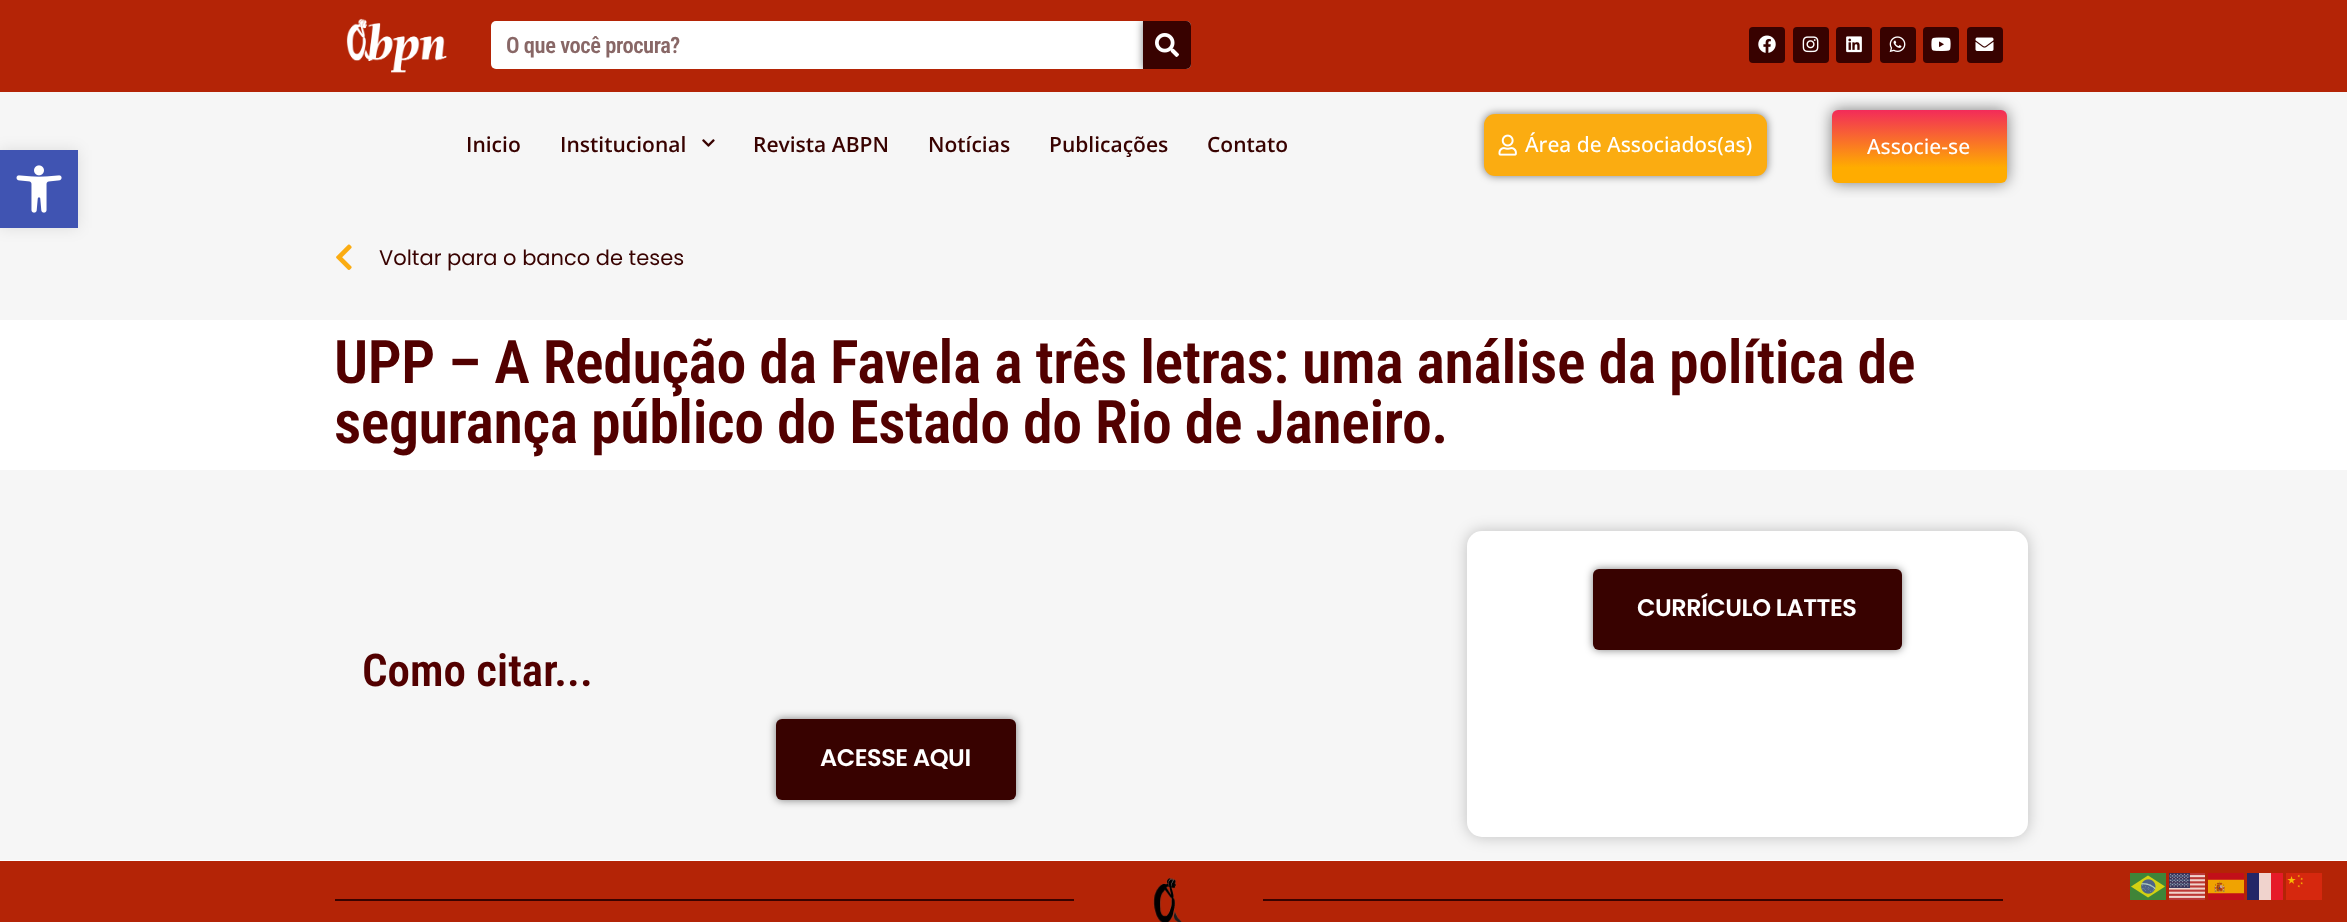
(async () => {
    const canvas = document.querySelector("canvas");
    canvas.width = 2347;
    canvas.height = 922;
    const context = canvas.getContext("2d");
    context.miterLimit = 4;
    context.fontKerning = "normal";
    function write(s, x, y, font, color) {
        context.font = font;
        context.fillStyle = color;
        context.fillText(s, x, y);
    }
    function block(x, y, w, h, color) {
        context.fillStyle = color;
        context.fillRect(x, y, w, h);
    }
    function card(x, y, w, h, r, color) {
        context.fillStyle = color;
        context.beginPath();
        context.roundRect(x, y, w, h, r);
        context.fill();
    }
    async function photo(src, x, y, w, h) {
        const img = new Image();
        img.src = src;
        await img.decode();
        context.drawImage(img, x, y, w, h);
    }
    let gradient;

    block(0, 0, 2347, 922, "rgb(255, 255, 255)");
    block(0, 0, 2347, 92, "rgb(180, 36, 6)");
    await photo("media/1.png", 346, 18, 101, 55);
    card(491, 21, 700, 48, 5, "rgb(255, 255, 255)");
    context.letterSpacing = "-0.45px";
    write("O que você procura?", 506, 53, "600 22.5px Roboto Condensed", "rgb(136, 103, 102)");
    context.save();
    context.beginPath();
    context.roundRect(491, 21, 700, 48, 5);
    context.clip();
    context.fillStyle = "rgba(0, 0, 0, 0.5)";
    context.filter = "blur(4.5px)";
    context.beginPath();
    context.rect(1143, 21, 48, 48);
    context.fill();
    context.filter = "none";
    context.restore();
    context.fillStyle = "rgb(56, 2, 0)";
    context.beginPath();
    context.roundRect(1143, 21, 48, 48, [0, 5, 5, 0]);
    context.fill();
    await photo("media/2.png", 1155, 33, 24, 24);
    card(1749, 27, 36, 36, 4, "rgb(56, 2, 0)");
    await photo("media/3.png", 1758, 35, 18, 18);
    card(1793, 27, 36, 36, 4, "rgb(56, 2, 0)");
    await photo("media/4.png", 1802, 36, 17, 17);
    card(1836, 27, 36, 36, 4, "rgb(56, 2, 0)");
    await photo("media/5.png", 1846, 36, 16, 17);
    card(1880, 27, 36, 36, 4, "rgb(56, 2, 0)");
    await photo("media/6.png", 1889, 36, 17, 17);
    card(1923, 27, 36, 36, 4, "rgb(56, 2, 0)");
    await photo("media/7.png", 1931, 37, 20, 14);
    card(1967, 27, 36, 36, 4, "rgb(56, 2, 0)");
    await photo("media/8.png", 1975, 37, 19, 14);
    block(0, 92, 2347, 106, "rgb(246, 246, 246)");
    context.letterSpacing = "0px";
    write("Inicio", 466, 152, "600 21px Open Sans", "rgb(56, 2, 0)");
    write("Institucional", 560, 152, "600 21px Open Sans", "rgb(56, 2, 0)");
    await photo("media/9.png", 702, 139, 13, 8);
    write("Revista ABPN", 753, 152, "600 21px Open Sans", "rgb(56, 2, 0)");
    write("Notícias", 928, 152, "600 21px Open Sans", "rgb(56, 2, 0)");
    write("Publicações", 1049, 152, "600 21px Open Sans", "rgb(56, 2, 0)");
    write("Contato", 1207, 152, "600 21px Open Sans", "rgb(56, 2, 0)");
    context.fillStyle = "rgba(0, 0, 0, 0.5)";
    context.filter = "blur(4.5px)";
    context.beginPath();
    context.roundRect(1484, 114, 283, 62, 11);
    context.fill();
    context.filter = "none";
    card(1484, 114, 283, 62, 11, "rgb(251, 172, 17)");
    await photo("media/10.png", 1498, 134, 19, 22);
    write("Área de Associados(as)", 1525, 152, "500 21px Open Sans", "rgb(255, 255, 255)");
    context.fillStyle = "rgba(0, 0, 0, 0.5)";
    context.filter = "blur(7.5px)";
    context.beginPath();
    context.roundRect(1832, 110, 175, 73, 6);
    context.fill();
    context.filter = "none";
    gradient = context.createLinearGradient(1919, 183, 1919, 109);
    gradient.addColorStop(0.21, "rgb(255, 172, 0)");
    gradient.addColorStop(1, "rgb(242, 41, 91)");
    context.fillStyle = gradient;
    context.beginPath();
    context.roundRect(1832, 110, 175, 73, 6);
    context.fill();
    write("Associe-se", 1867, 154, "500 21px Open Sans", "rgb(255, 255, 255)");
    block(0, 198, 2347, 122, "rgb(246, 246, 246)");
    context.fillStyle = "rgba(0, 0, 0, 0.1)";
    context.filter = "blur(7.5px)";
    context.beginPath();
    context.rect(0, 150, 78, 78);
    context.fill();
    context.filter = "none";
    block(0, 150, 78, 78, "rgb(64, 84, 178)");
    await photo("media/11.png", 16, 165, 46, 48);
    await photo("media/12.png", 336, 244, 16, 26);
    write("Voltar para o banco de teses", 379, 265, "21px Poppins", "rgb(56, 2, 0)");
    context.letterSpacing = "-0.45px";
    write("UPP – A Redução da Favela a três letras: uma análise da política de", 334, 383, "600 60px Roboto Condensed", "rgb(82, 0, 0)");
    write("segurança público do Estado do Rio de Janeiro.", 334, 443, "600 60px Roboto Condensed", "rgb(82, 0, 0)");
    block(0, 470, 2347, 390, "rgb(246, 246, 246)");
    context.fillStyle = "rgba(0, 0, 0, 0.22)";
    context.filter = "blur(7.5px)";
    context.beginPath();
    context.roundRect(1467, 531, 561, 306, 15);
    context.fill();
    context.filter = "none";
    card(1467, 531, 561, 306, 15, "rgb(255, 255, 255)");
    context.fillStyle = "rgba(0, 0, 0, 0.5)";
    context.filter = "blur(4.5px)";
    context.beginPath();
    context.roundRect(1593, 569, 309, 81, 6);
    context.fill();
    context.filter = "none";
    card(1593, 569, 309, 81, 6, "rgb(56, 2, 0)");
    write("CURRÍCULO LATTES", 1637, 616, "600 24px Poppins", "rgb(255, 255, 255)");
    context.letterSpacing = "0px";
    write("Como citar...", 362, 686, "600 45px Roboto Condensed", "rgb(82, 0, 0)");
    context.fillStyle = "rgba(0, 0, 0, 0.5)";
    context.filter = "blur(4.5px)";
    context.beginPath();
    context.roundRect(776, 719, 240, 81, 6);
    context.fill();
    context.filter = "none";
    card(776, 719, 240, 81, 6, "rgb(56, 2, 0)");
    context.letterSpacing = "-0.45px";
    write("ACESSE AQUI", 820, 766, "600 24px Poppins", "rgb(255, 255, 255)");
    block(0, 861, 2347, 61, "rgb(180, 36, 6)");
    block(335, 899, 739, 2, "rgb(56, 2, 0)");
    await photo("media/13.png", 1153, 878, 29, 44);
    block(1263, 899, 740, 2, "rgb(56, 2, 0)");
    await photo("media/14.png", 2130, 873, 36, 27);
    await photo("media/15.png", 2169, 873, 36, 27);
    await photo("media/16.png", 2208, 873, 36, 27);
    block(2247, 873, 12, 27, "rgb(36, 38, 103)");
    block(2259, 873, 12, 27, "rgb(240, 211, 205)");
    block(2271, 873, 12, 27, "rgb(230, 26, 40)");
    await photo("media/17.png", 2286, 873, 36, 27);
})();
